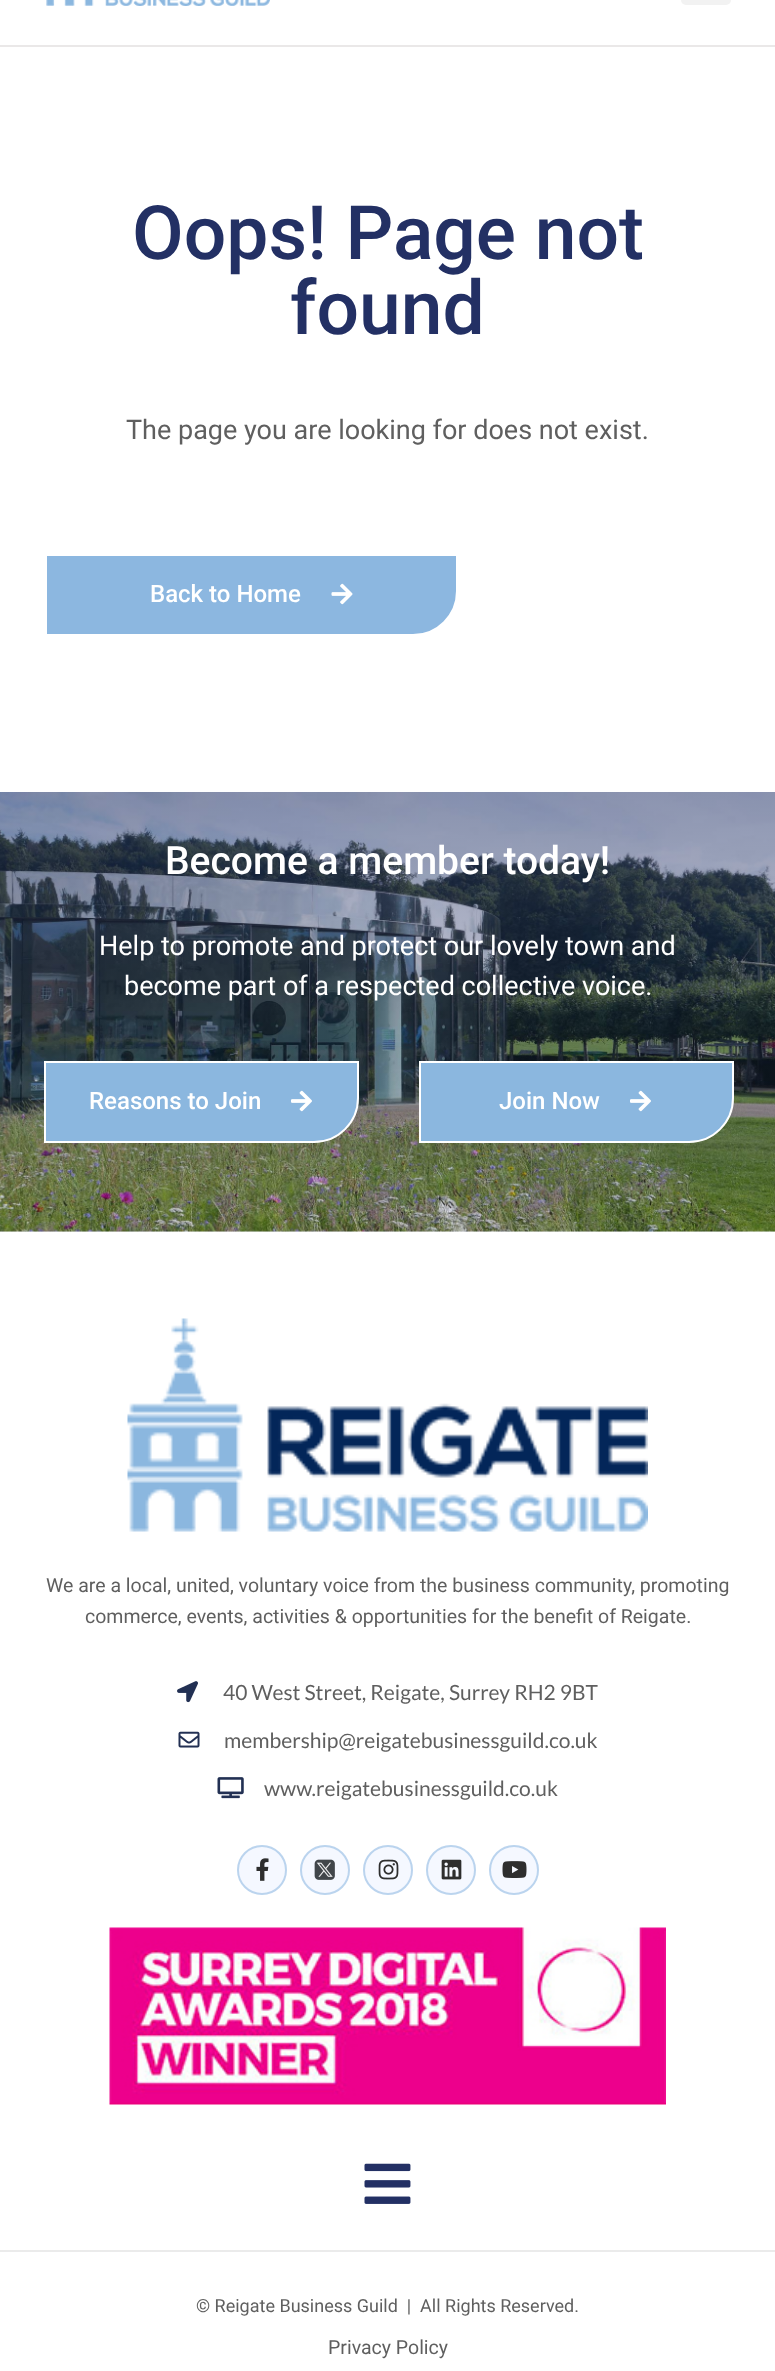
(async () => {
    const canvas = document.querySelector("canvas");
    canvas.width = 775;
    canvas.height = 2371;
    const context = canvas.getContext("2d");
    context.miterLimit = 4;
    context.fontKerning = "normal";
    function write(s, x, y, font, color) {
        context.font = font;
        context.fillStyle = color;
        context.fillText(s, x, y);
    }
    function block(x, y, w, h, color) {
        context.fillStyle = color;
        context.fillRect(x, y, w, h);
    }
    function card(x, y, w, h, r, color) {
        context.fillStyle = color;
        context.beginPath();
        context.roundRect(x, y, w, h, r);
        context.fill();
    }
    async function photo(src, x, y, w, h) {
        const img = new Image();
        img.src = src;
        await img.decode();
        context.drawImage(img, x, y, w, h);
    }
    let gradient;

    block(0, 0, 775, 2371, "rgb(255, 255, 255)");
    block(0, 45, 775, 2, "rgb(234, 232, 232)");
    await photo("media/1.png", 46, 0, 224, 6);
    card(681, -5, 50, 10, 5, "rgb(242, 242, 242)");
    write("Oops! Page not", 132, 259, "500 75px Roboto", "rgb(35, 48, 100)");
    write("found", 290, 334, "500 75px Roboto", "rgb(35, 48, 100)");
    write("The page you are looking for does not exist.", 126, 439, "27px Roboto", "rgb(95, 95, 95)");
    context.fillStyle = "rgb(140, 183, 224)";
    context.beginPath();
    context.roundRect(46, 555, 411, 80, [0, 0, 44, 0]);
    context.fill();
    context.strokeStyle = "rgb(255, 255, 255)";
    context.lineWidth = 2;
    context.stroke();
    write("Back to Home", 150, 602, "500 24px Roboto", "rgb(255, 255, 255)");
    await photo("media/2.png", 331, 583, 22, 22);
    await photo("media/3.png", 0, 792, 775, 440);
    gradient = context.createLinearGradient(388, 792, 388, 1232);
    gradient.addColorStop(0, "rgba(35, 48, 100, 0.5)");
    gradient.addColorStop(1, "rgba(35, 48, 100, 0.1)");
    context.fillStyle = gradient;
    context.fillRect(0, 792, 775, 440);
    write("Become a member today!", 165, 874, "500 39px Roboto", "rgb(255, 255, 255)");
    write("Help to promote and protect our lovely town and", 99, 955, "27px Roboto", "rgb(255, 255, 255)");
    write("become part of a respected collective voice.", 124, 995, "27px Roboto", "rgb(255, 255, 255)");
    context.fillStyle = "rgb(139, 183, 223)";
    context.beginPath();
    context.roundRect(45, 1062, 313, 80, [0, 0, 44, 0]);
    context.fill();
    context.stroke();
    write("Reasons to Join", 89, 1109, "500 24px Roboto", "rgb(255, 255, 255)");
    await photo("media/4.png", 291, 1090, 21, 22);
    context.fillStyle = "rgb(139, 183, 223)";
    context.beginPath();
    context.roundRect(420, 1062, 313, 80, [0, 0, 44, 0]);
    context.fill();
    context.stroke();
    write("Join Now", 499, 1109, "500 24px Roboto", "rgb(255, 255, 255)");
    await photo("media/4.png", 630, 1090, 21, 22);
    await photo("media/5.png", 127, 1318, 521, 214);
    write("We are a local, united, voluntary voice from the business community, promoting", 46, 1592, "19.5px Roboto", "rgb(95, 95, 95)");
    write("commerce, events, activities & opportunities for the benefit of Reigate.", 85, 1623, "19.5px Roboto", "rgb(95, 95, 95)");
    await photo("media/6.png", 177, 1681, 21, 22);
    write("40 West Street, Reigate, Surrey RH2 9BT", 223, 1700, "21px Lato", "rgb(95, 95, 95)");
    await photo("media/7.png", 178, 1731, 22, 17);
    write("membership@reigatebusinessguild.co.uk", 224, 1748, "21px Lato", "rgb(95, 95, 95)");
    await photo("media/8.png", 217, 1777, 27, 22);
    write("www.reigatebusinessguild.co.uk", 264, 1796, "21px Lato", "rgb(95, 95, 95)");
    context.fillStyle = "rgb(245, 248, 255)";
    context.beginPath();
    context.arc(262, 1870, 25, 0, Math.PI * 2);
    context.fill();
    context.beginPath();
    context.arc(262, 1870, 24, 0, Math.PI * 2);
    context.strokeStyle = "rgba(140, 183, 224, 0.56)";
    context.stroke();
    await photo("media/9.png", 256, 1858, 13, 23);
    context.beginPath();
    context.arc(325, 1870, 25, 0, Math.PI * 2);
    context.fill();
    context.beginPath();
    context.arc(325, 1870, 24, 0, Math.PI * 2);
    context.stroke();
    await photo("media/10.png", 314, 1859, 21, 21);
    context.beginPath();
    context.arc(388, 1870, 25, 0, Math.PI * 2);
    context.fill();
    context.beginPath();
    context.arc(388, 1870, 24, 0, Math.PI * 2);
    context.stroke();
    await photo("media/11.png", 378, 1859, 21, 21);
    context.beginPath();
    context.arc(451, 1870, 25, 0, Math.PI * 2);
    context.fill();
    context.beginPath();
    context.arc(451, 1870, 24, 0, Math.PI * 2);
    context.stroke();
    await photo("media/12.png", 441, 1859, 21, 21);
    context.beginPath();
    context.arc(514, 1870, 25, 0, Math.PI * 2);
    context.fill();
    context.beginPath();
    context.arc(514, 1870, 24, 0, Math.PI * 2);
    context.stroke();
    await photo("media/13.png", 502, 1861, 25, 17);
    await photo("media/14.png", 109, 1927, 557, 178);
    await photo("media/15.png", 364, 2163, 47, 41);
    block(0, 2250, 775, 2, "rgb(235, 235, 235)");
    write("© Reigate Business Guild  |  All Rights Reserved.", 196, 2312, "18px Roboto", "rgb(95, 95, 95)");
    write("Privacy Policy", 328, 2354, "19.5px Roboto", "rgb(95, 95, 95)");
})();
